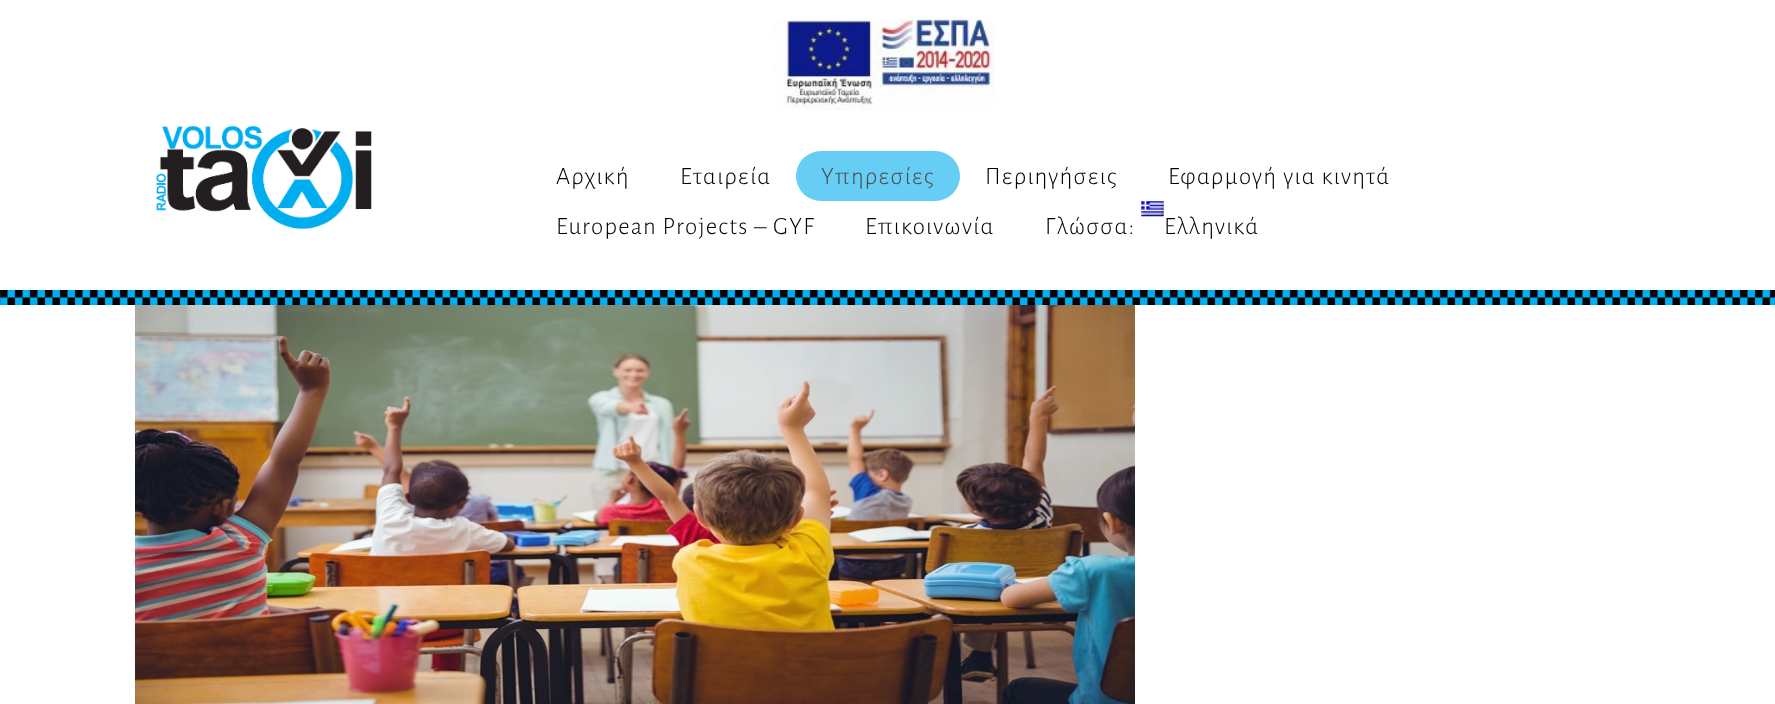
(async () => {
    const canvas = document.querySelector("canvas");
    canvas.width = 1775;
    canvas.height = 704;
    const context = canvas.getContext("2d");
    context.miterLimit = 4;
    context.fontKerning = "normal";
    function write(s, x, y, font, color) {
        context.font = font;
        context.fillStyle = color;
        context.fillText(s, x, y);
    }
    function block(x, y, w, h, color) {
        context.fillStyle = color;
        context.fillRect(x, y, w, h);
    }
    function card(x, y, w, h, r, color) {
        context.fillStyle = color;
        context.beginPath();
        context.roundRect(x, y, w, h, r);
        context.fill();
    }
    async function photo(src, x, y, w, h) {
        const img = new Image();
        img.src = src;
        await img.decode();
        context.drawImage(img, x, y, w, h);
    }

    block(0, 0, 1775, 704, "rgb(255, 255, 255)");
    await photo("media/1.png", 774, 19, 221, 91);
    await photo("media/2.png", 156, 126, 216, 103);
    context.letterSpacing = "1.25px";
    write("Αρχική", 556, 184, "300 25px Alegreya Sans", "rgb(10, 0, 2)");
    write("Εταιρεία", 680, 184, "300 25px Alegreya Sans", "rgb(10, 0, 2)");
    card(796, 151, 164, 50, 25, "rgb(102, 206, 245)");
    write("Υπηρεσίες", 821, 184, "300 25px Alegreya Sans", "rgb(76, 76, 76)");
    write("Περιηγήσεις", 985, 184, "300 25px Alegreya Sans", "rgb(10, 0, 2)");
    write("Εφαρμογή για κινητά", 1168, 184, "300 25px Alegreya Sans", "rgb(10, 0, 2)");
    write("European Projects – GYF", 556, 234, "300 25px Alegreya Sans", "rgb(10, 0, 2)");
    write("Επικοινωνία", 865, 234, "300 25px Alegreya Sans", "rgb(10, 0, 2)");
    await photo("media/3.png", 1141, 201, 23, 16);
    write("Γλώσσα:", 1045, 234, "300 25px Alegreya Sans", "rgb(10, 0, 2)");
    write("Ελληνικά", 1164, 234, "300 25px Alegreya Sans", "rgb(10, 0, 2)");
    await photo("media/4.png", 0, 290, 1775, 15);
    await photo("media/5.png", 135, 305, 1000, 399);
})();
